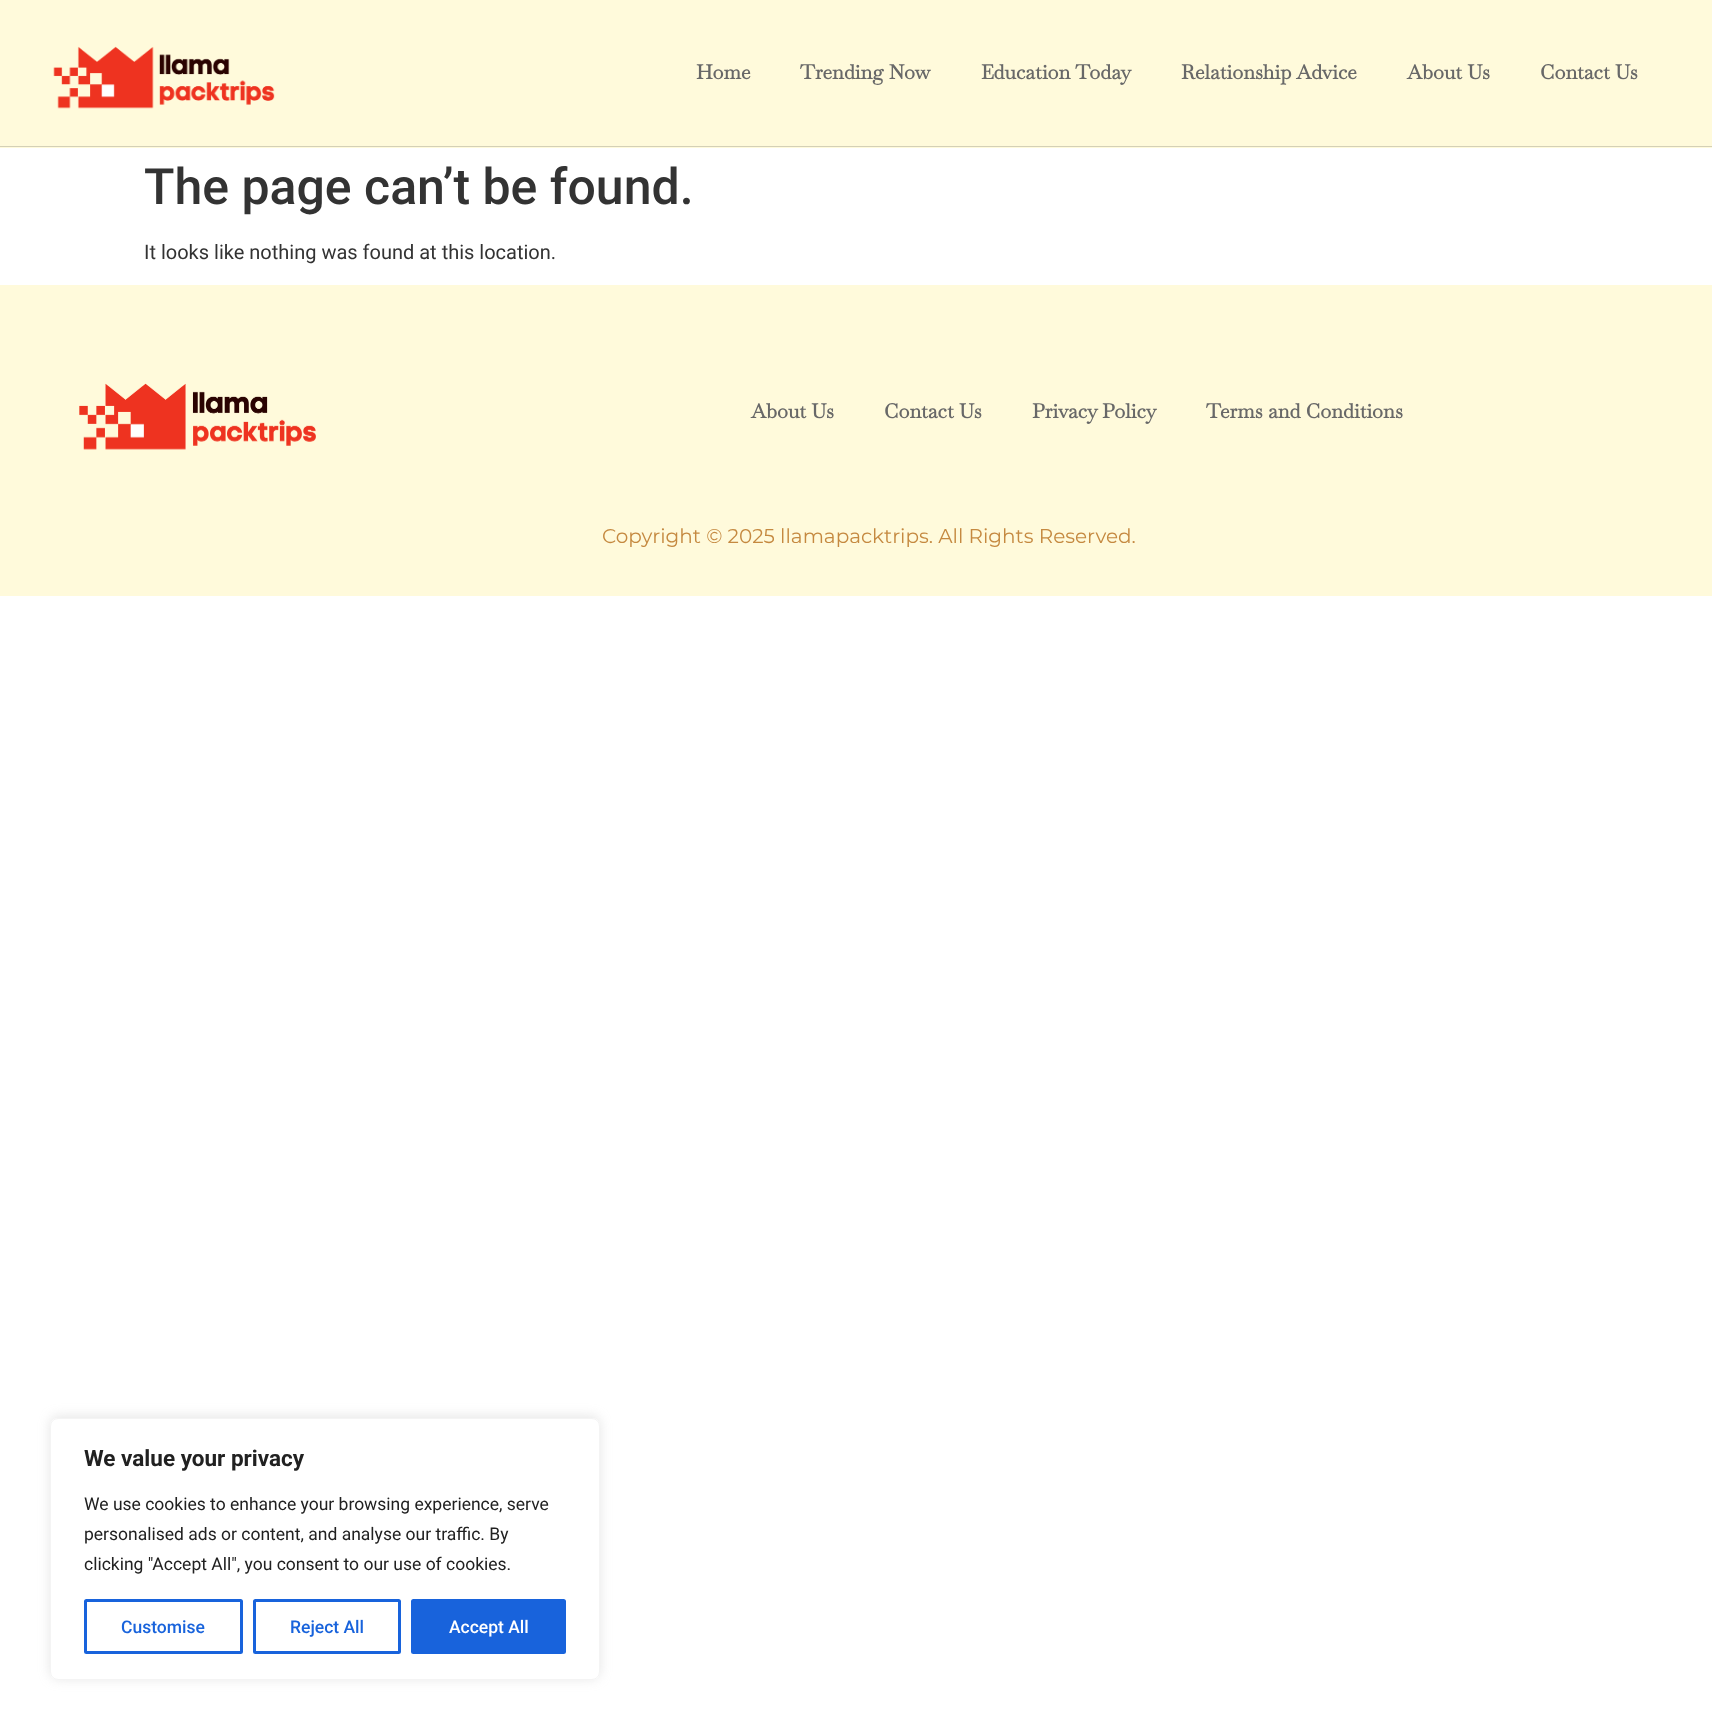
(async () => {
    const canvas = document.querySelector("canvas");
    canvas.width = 1712;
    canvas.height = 1730;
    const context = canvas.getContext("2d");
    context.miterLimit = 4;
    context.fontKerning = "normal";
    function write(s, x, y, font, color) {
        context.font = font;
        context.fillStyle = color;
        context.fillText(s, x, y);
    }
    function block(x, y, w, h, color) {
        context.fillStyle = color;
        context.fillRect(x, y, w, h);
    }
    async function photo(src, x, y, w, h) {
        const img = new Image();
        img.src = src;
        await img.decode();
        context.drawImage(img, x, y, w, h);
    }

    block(0, 0, 1712, 1730, "rgb(255, 255, 255)");
    block(0, 0, 1712, 148, "rgb(255, 250, 219)");
    block(0, 146, 1712, 1, "rgb(212, 208, 182)");
    await photo("media/1.png", 53, 46, 222, 63);
    write("Home", 696, 79, "bold 20px Baskervville", "rgb(104, 104, 104)");
    write("Trending Now", 800, 79, "bold 20px Baskervville", "rgb(104, 104, 104)");
    write("Education Today", 981, 79, "bold 20px Baskervville", "rgb(104, 104, 104)");
    write("Relationship Advice", 1181, 79, "bold 20px Baskervville", "rgb(104, 104, 104)");
    write("About Us", 1407, 79, "bold 20px Baskervville", "rgb(104, 104, 104)");
    write("Contact Us", 1540, 79, "bold 20px Baskervville", "rgb(104, 104, 104)");
    write("The page can’t be found.", 144, 204, "500 50px Roboto", "rgb(51, 51, 51)");
    write("It looks like nothing was found at this location.", 144, 259, "20px Roboto", "rgb(51, 51, 51)");
    block(0, 285, 1712, 311, "rgb(255, 250, 219)");
    await photo("media/2.png", 79, 383, 237, 67);
    write("About Us", 751, 418, "bold 20px Baskervville", "rgb(104, 104, 104)");
    write("Contact Us", 884, 418, "bold 20px Baskervville", "rgb(104, 104, 104)");
    write("Privacy Policy", 1032, 418, "bold 20px Baskervville", "rgb(104, 104, 104)");
    write("Terms and Conditions", 1206, 418, "bold 20px Baskervville", "rgb(104, 104, 104)");
    write("Copyright © 2025 llamapacktrips. All Rights Reserved.", 602, 543, "20px Montserrat", "rgb(197, 137, 64)");
    context.save();
    context.beginPath();
    context.moveTo(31, 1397);
    context.lineTo(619, 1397);
    context.lineTo(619, 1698);
    context.lineTo(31, 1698);
    context.closePath();
    context.moveTo(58, 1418);
    context.lineTo(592, 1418);
    context.bezierCurveTo(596.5, 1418, 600, 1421.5, 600, 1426);
    context.lineTo(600, 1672);
    context.bezierCurveTo(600, 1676.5, 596.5, 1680, 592, 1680);
    context.lineTo(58, 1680);
    context.bezierCurveTo(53.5, 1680, 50, 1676.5, 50, 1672);
    context.lineTo(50, 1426);
    context.bezierCurveTo(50, 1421.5, 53.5, 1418, 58, 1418);
    context.closePath();
    context.clip("evenodd");
    context.fillStyle = "rgba(172, 171, 171, 0.3)";
    context.filter = "blur(6px)";
    context.beginPath();
    context.roundRect(50, 1416, 550, 263, 8);
    context.fill();
    context.filter = "none";
    context.restore();
    context.beginPath();
    context.roundRect(50.5, 1418.5, 549, 261, 7.5);
    context.strokeStyle = "rgb(244, 244, 244)";
    context.stroke();
    write("We value your privacy", 84, 1466, "bold 22.5px Roboto", "rgb(33, 33, 33)");
    write("We use cookies to enhance your browsing experience, serve", 84, 1510, "17.5px Roboto", "rgb(33, 33, 33)");
    write("personalised ads or content, and analyse our traffic. By", 84, 1540, "17.5px Roboto", "rgb(33, 33, 33)");
    write("clicking \"Accept All\", you consent to our use of cookies.", 84, 1570, "17.5px Roboto", "rgb(33, 33, 33)");
    context.beginPath();
    context.roundRect(85.5, 1600.5, 156, 52, 1);
    context.strokeStyle = "rgb(24, 99, 220)";
    context.lineWidth = 3;
    context.stroke();
    write("Customise", 121, 1633, "500 17.5px Roboto", "rgb(24, 99, 220)");
    context.beginPath();
    context.roundRect(254.5, 1600.5, 145, 52, 1);
    context.stroke();
    write("Reject All", 290, 1633, "500 17.5px Roboto", "rgb(24, 99, 220)");
    context.beginPath();
    context.roundRect(412.5, 1600.5, 152, 52, 1);
    context.fill();
    context.stroke();
    write("Accept All", 449, 1633, "500 17.5px Roboto", "rgb(255, 255, 255)");
})();
